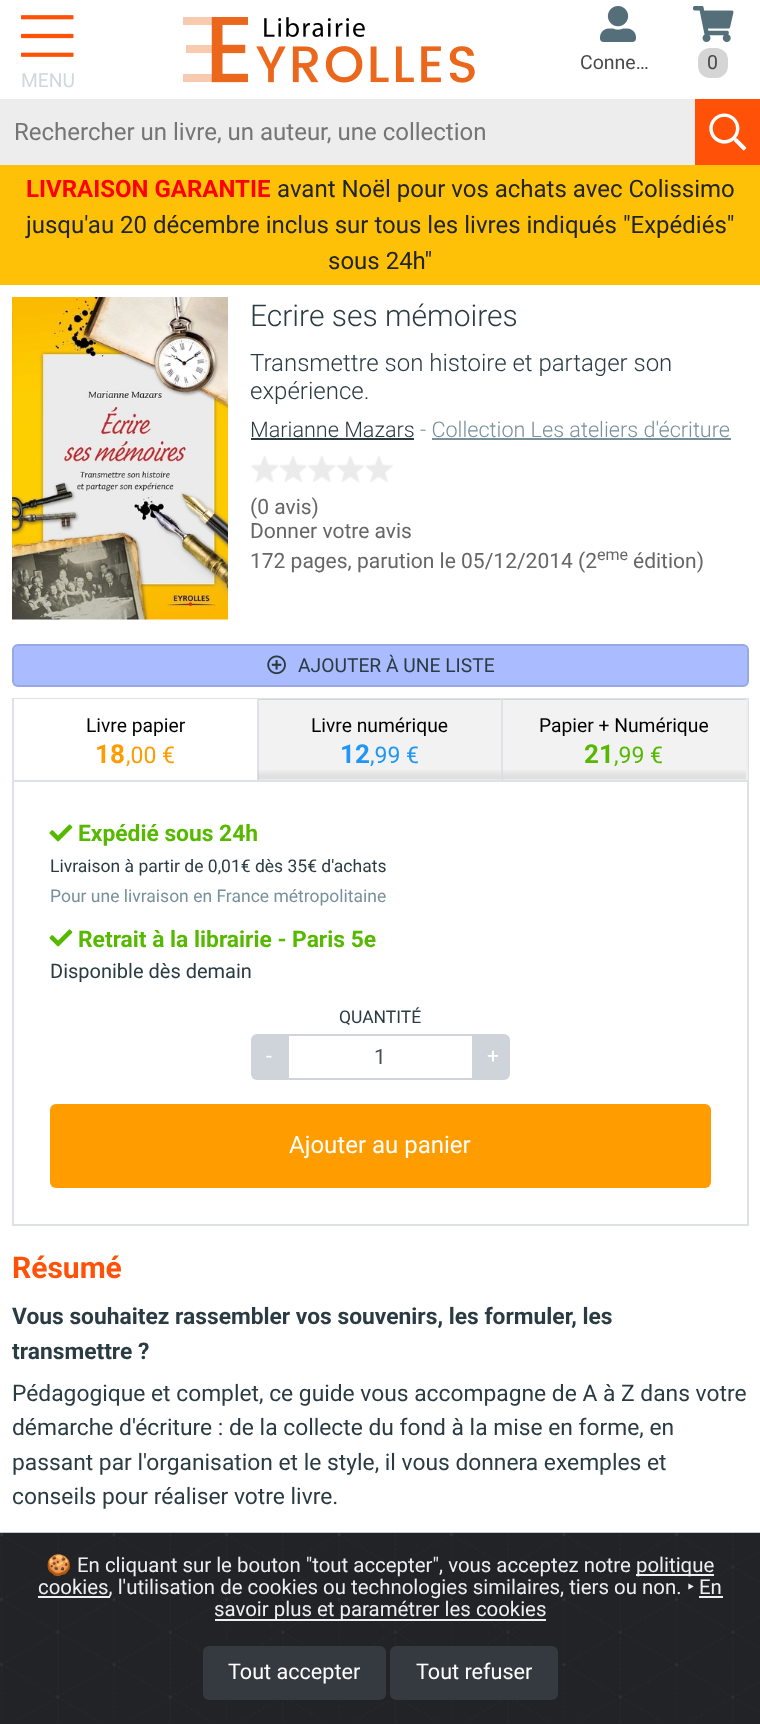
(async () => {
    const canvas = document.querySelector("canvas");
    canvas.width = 760;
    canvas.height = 1724;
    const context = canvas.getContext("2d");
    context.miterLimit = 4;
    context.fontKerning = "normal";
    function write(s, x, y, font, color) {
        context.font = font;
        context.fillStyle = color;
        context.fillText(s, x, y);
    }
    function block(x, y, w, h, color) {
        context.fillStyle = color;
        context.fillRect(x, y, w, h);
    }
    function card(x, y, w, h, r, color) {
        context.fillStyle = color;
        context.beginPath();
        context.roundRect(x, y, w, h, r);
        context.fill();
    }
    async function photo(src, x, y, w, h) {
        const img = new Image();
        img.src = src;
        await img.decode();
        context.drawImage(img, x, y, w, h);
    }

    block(0, 0, 760, 1724, "rgb(255, 255, 255)");
    await photo("media/1.png", 600, 6, 36, 36);
    write("Conne…", 580, 69, "19.5px Roboto", "rgb(73, 73, 72)");
    await photo("media/2.png", 693, 6, 41, 36);
    card(698, 48, 30, 30, 12, "rgb(213, 213, 213)");
    write("0", 707, 69, "19.5px Roboto", "rgb(73, 73, 72)");
    await photo("media/3.png", 21, 15, 53, 42);
    write("MENU", 21, 87, "19.25px Roboto", "rgb(207, 216, 220)");
    await photo("media/4.png", 183, 17, 292, 66);
    block(0, 99, 695, 66, "rgb(237, 237, 237)");
    write("Rechercher un livre, un auteur, une collection", 14, 140, "24px Roboto", "rgb(117, 117, 117)");
    await photo("media/5.png", 695, 99, 65, 66);
    block(0, 165, 760, 120, "rgb(255, 193, 7)");
    write("LIVRAISON GARANTIE", 26, 197, "bold 24px Roboto", "rgb(255, 0, 0)");
    write("avant Noël pour vos achats avec Colissimo", 277, 197, "24px Roboto", "rgb(33, 37, 41)");
    write("jusqu'au 20 décembre inclus sur tous les livres indiqués \"Expédiés\"", 26, 233, "24px Roboto", "rgb(33, 37, 41)");
    write("sous 24h\"", 328, 269, "24px Roboto", "rgb(33, 37, 41)");
    await photo("media/6.png", 12, 297, 216, 323);
    write("Ecrire ses mémoires", 250, 326, "300 30px Roboto", "rgb(43, 59, 67)");
    write("Transmettre son histoire et partager son", 250, 371, "300 24px Roboto", "rgb(43, 59, 67)");
    write("expérience.", 250, 399, "300 24px Roboto", "rgb(43, 59, 67)");
    write("Marianne Mazars", 250, 437, "300 21.6px Roboto", "rgb(43, 59, 67)");
    block(251, 438, 163, 2, "rgb(43, 59, 67)");
    write("- Collection Les ateliers d'écriture", 420, 437, "300 21.6px Roboto", "rgb(120, 144, 156)");
    block(432, 438, 299, 2, "rgb(120, 144, 156)");
    await photo("media/7.png", 251, 455, 142, 28);
    write("(0 avis)", 250, 514, "21px Roboto", "rgb(102, 102, 102)");
    write("Donner votre avis", 250, 538, "21px Roboto", "rgb(102, 102, 102)");
    write("172 pages, parution le 05/12/2014 (2", 250, 568, "21px Roboto", "rgb(102, 102, 102)");
    write("eme", 597, 560, "16px Roboto", "rgb(102, 102, 102)");
    write("édition)", 633, 568, "21px Roboto", "rgb(102, 102, 102)");
    card(12, 644, 737, 43, 6, "rgb(170, 187, 255)");
    context.beginPath();
    context.roundRect(13, 645, 735, 41, 5);
    context.strokeStyle = "rgba(0, 0, 0, 0.1)";
    context.lineWidth = 2;
    context.stroke();
    await photo("media/8.png", 267, 655, 19, 20);
    write("AJOUTER À UNE LISTE", 298, 672, "19.25px Roboto", "rgb(43, 59, 67)");
    context.strokeStyle = "rgb(222, 226, 230)";
    context.strokeRect(13, 699, 735, 526);
    block(259, 699, 487, 81, "rgba(0, 0, 0, 0.05)");
    block(14, 780, 733, 2, "rgb(222, 226, 230)");
    block(14, 699, 243, 1, "rgb(255, 255, 255)");
    block(257, 699, 2, 81, "rgb(222, 226, 230)");
    write("Livre papier", 86, 732, "19.25px Roboto", "rgb(0, 0, 0)");
    write("18", 95, 763, "bold 26px Roboto", "rgb(255, 157, 0)");
    write(",00 €", 126, 763, "23px Roboto", "rgb(255, 157, 0)");
    await photo("media/9.png", 258, 770, 243, 10);
    block(501, 699, 2, 81, "rgb(222, 226, 230)");
    write("Livre numérique", 311, 732, "19.25px Roboto", "rgb(0, 0, 0)");
    write("12", 340, 763, "bold 26px Roboto", "rgb(33, 150, 243)");
    write(",99 €", 370, 763, "23px Roboto", "rgb(33, 150, 243)");
    await photo("media/10.png", 502, 770, 244, 10);
    block(746, 699, 2, 81, "rgb(238, 238, 238)");
    write("Papier + Numérique", 539, 732, "19.25px Roboto", "rgb(0, 0, 0)");
    write("21", 584, 763, "bold 26px Roboto", "rgb(86, 185, 0)");
    write(",99 €", 614, 763, "23px Roboto", "rgb(86, 185, 0)");
    await photo("media/11.png", 49, 824, 24, 18);
    write("Expédié sous 24h", 78, 841, "bold 22.8px Roboto", "rgb(86, 185, 0)");
    write("Livraison à partir de 0,01€ dès 35€ d'achats", 50, 872, "17.5px Roboto", "rgb(43, 59, 67)");
    write("Pour une livraison en France métropolitaine", 50, 902, "17.5px Roboto", "rgb(120, 144, 156)");
    await photo("media/11.png", 49, 929, 24, 18);
    write("Retrait à la librairie - Paris 5e", 78, 947, "bold 22.8px Roboto", "rgb(86, 185, 0)");
    write("Disponible dès demain", 50, 978, "20px Roboto", "rgb(43, 59, 67)");
    write("QUANTITÉ", 339, 1023, "17.5px Roboto", "rgb(43, 59, 67)");
    context.fillStyle = "rgb(206, 212, 218)";
    context.beginPath();
    context.roundRect(251, 1034, 36, 46, [6, 0, 0, 6]);
    context.fill();
    write("-", 266, 1063, "21px Roboto", "rgb(255, 255, 255)");
    context.strokeStyle = "rgb(206, 212, 218)";
    context.strokeRect(288, 1035, 185, 44);
    write("1", 374, 1064, "21px Roboto", "rgb(73, 80, 87)");
    context.fillStyle = "rgb(206, 212, 218)";
    context.beginPath();
    context.roundRect(474, 1034, 36, 46, [0, 6, 6, 0]);
    context.fill();
    write("+", 487, 1063, "21px Roboto", "rgb(255, 255, 255)");
    card(50, 1104, 661, 84, 6, "rgb(255, 157, 0)");
    write("Ajouter au panier", 289, 1153, "24px Roboto", "rgb(255, 255, 255)");
    write("Résumé", 12, 1278, "bold 30px Roboto", "rgb(255, 82, 8)");
    write("Vous souhaitez rassembler vos souvenirs, les formuler, les", 12, 1324, "bold 22.8px Roboto", "rgb(43, 59, 67)");
    write("transmettre ?", 12, 1359, "bold 22.8px Roboto", "rgb(43, 59, 67)");
    write("Pédagogique et complet, ce guide vous accompagne de A à Z dans votre", 12, 1401, "22.8px Roboto", "rgb(43, 59, 67)");
    write("démarche d'écriture : de la collecte du fond à la mise en forme, en", 12, 1435, "22.8px Roboto", "rgb(43, 59, 67)");
    write("passant par l'organisation et le style, il vous donnera exemples et", 12, 1470, "22.8px Roboto", "rgb(43, 59, 67)");
    write("conseils pour réaliser votre livre.", 12, 1504, "22.8px Roboto", "rgb(43, 59, 67)");
    block(0, 1533, 760, 191, "rgb(33, 35, 39)");
    await photo("media/12.png", 0, 1532, 760, 190);
    write("🍪", 46, 1572, "20.4px Noto Color Emoji", "rgb(236, 240, 241)");
    write("En cliquant sur le bouton \"tout accepter\", vous acceptez notre", 77, 1572, "20.4px Roboto", "rgb(236, 240, 241)");
    block(636, 1574, 78, 2, "rgb(236, 240, 241)");
    write("politique", 636, 1572, "20.4px Roboto", "rgb(236, 240, 241)");
    block(38, 1596, 72, 2, "rgb(236, 240, 241)");
    write("cookies, l'utilisation de cookies ou technologies similaires, tiers ou non.", 38, 1594, "20.4px Roboto", "rgb(236, 240, 241)");
    write("‣", 687, 1594, "20.4px Noto Sans", "rgb(236, 240, 241)");
    write("En", 699, 1594, "20.4px Roboto", "rgb(236, 240, 241)");
    block(699, 1596, 24, 2, "rgb(236, 240, 241)");
    block(215, 1619, 331, 2, "rgb(236, 240, 241)");
    write("savoir plus et paramétrer les cookies", 214, 1616, "20.4px Roboto", "rgb(236, 240, 241)");
    context.fillStyle = "rgb(52, 58, 64)";
    context.beginPath();
    context.roundRect(204, 1647, 181, 52, 5);
    context.fill();
    context.strokeStyle = "rgb(52, 58, 64)";
    context.stroke();
    write("Tout accepter", 228, 1679, "21.6px Roboto", "rgb(255, 255, 255)");
    context.fillStyle = "rgb(52, 58, 64)";
    context.beginPath();
    context.roundRect(391, 1647, 166, 52, 5);
    context.fill();
    context.stroke();
    write("Tout refuser", 416, 1679, "21.6px Roboto", "rgb(255, 255, 255)");
})();
